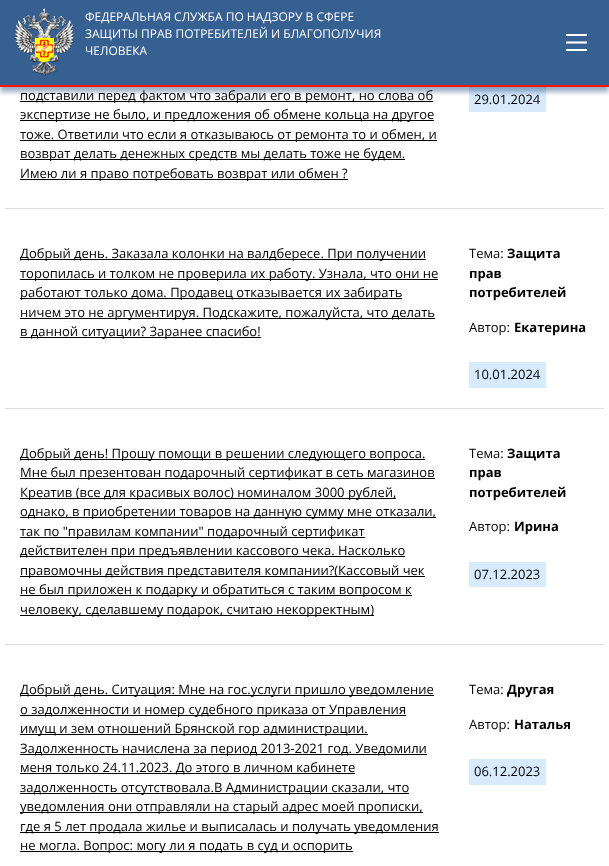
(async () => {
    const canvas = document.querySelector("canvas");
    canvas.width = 609;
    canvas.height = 866;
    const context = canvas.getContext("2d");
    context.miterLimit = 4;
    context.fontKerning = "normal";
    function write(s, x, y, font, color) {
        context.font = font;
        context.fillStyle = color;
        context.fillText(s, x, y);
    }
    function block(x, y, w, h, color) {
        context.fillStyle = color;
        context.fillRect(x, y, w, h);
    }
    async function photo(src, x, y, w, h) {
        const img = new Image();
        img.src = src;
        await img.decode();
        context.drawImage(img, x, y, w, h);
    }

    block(0, 0, 609, 866, "rgb(255, 255, 255)");
    block(469, 87, 77, 25, "rgb(216, 235, 254)");
    context.fillStyle = "rgba(4, 51, 107, 0.4)";
    context.filter = "blur(2.5px)";
    context.beginPath();
    context.rect(0, 5, 609, 87);
    context.fill();
    context.filter = "none";
    block(0, 0, 609, 85, "rgb(55, 96, 146)");
    block(0, 85, 609, 2, "rgb(247, 20, 4)");
    await photo("media/1.png", 15, 8, 59, 68);
    write("ФЕДЕРАЛЬНАЯ СЛУЖБА ПО НАДЗОРУ В СФЕРЕ", 85, 21, "12px Open Sans", "rgb(255, 255, 255)");
    write("ЗАЩИТЫ ПРАВ ПОТРЕБИТЕЛЕЙ И БЛАГОПОЛУЧИЯ", 85, 38, "12px Open Sans", "rgb(255, 255, 255)");
    write("ЧЕЛОВЕКА", 85, 55, "12px Open Sans", "rgb(255, 255, 255)");
    block(566, 34, 21, 2, "rgb(255, 255, 255)");
    context.beginPath();
    context.moveTo(566, 42.5);
    context.lineTo(587, 42.5);
    context.strokeStyle = "rgb(255, 255, 255)";
    context.lineWidth = 2.1;
    context.stroke();
    block(566, 49, 21, 2, "rgb(255, 255, 255)");
    block(5, 208, 599, 1, "rgb(221, 221, 221)");
    block(20, 101, 413, 1, "rgb(0, 0, 0)");
    write("подставили перед фактом что забрали его в ремонт, но слова об", 20, 100, "13px Open Sans", "rgb(0, 0, 0)");
    block(20, 120, 414, 1, "rgb(0, 0, 0)");
    write("экспертизе не было, и предложения об обмене кольца на другое", 20, 119, "13px Open Sans", "rgb(0, 0, 0)");
    block(20, 140, 417, 1, "rgb(0, 0, 0)");
    write("тоже. Ответили что если я отказываюсь от ремонта то и обмен, и", 20, 139, "13px Open Sans", "rgb(0, 0, 0)");
    block(20, 159, 385, 1, "rgb(0, 0, 0)");
    write("возврат делать денежных средств мы делать тоже не будем.", 20, 158, "13px Open Sans", "rgb(0, 0, 0)");
    block(20, 179, 328, 1, "rgb(0, 0, 0)");
    write("Имею ли я право потребовать возврат или обмен ?", 20, 178, "13px Open Sans", "rgb(0, 0, 0)");
    write("29.01.2024", 474, 104, "13px Open Sans", "rgb(0, 0, 0)");
    block(5, 408, 599, 1, "rgb(221, 221, 221)");
    block(20, 259, 406, 1, "rgb(0, 0, 0)");
    write("Добрый день. Заказала колонки на валдбересе. При получении", 20, 258, "13px Open Sans", "rgb(0, 0, 0)");
    block(20, 279, 418, 1, "rgb(0, 0, 0)");
    write("торопилась и толком не проверила их работу. Узнала, что они не", 20, 278, "13px Open Sans", "rgb(0, 0, 0)");
    block(20, 298, 382, 1, "rgb(0, 0, 0)");
    write("работают только дома. Продавец отказывается их забирать", 20, 297, "13px Open Sans", "rgb(0, 0, 0)");
    block(20, 318, 415, 1, "rgb(0, 0, 0)");
    write("ничем это не аргументируя. Подскажите, пожалуйста, что делать", 20, 317, "13px Open Sans", "rgb(0, 0, 0)");
    block(20, 337, 241, 1, "rgb(0, 0, 0)");
    write("в данной ситуации? Заранее спасибо!", 20, 336, "13px Open Sans", "rgb(0, 0, 0)");
    write("Тема:", 469, 258, "13px Open Sans", "rgb(0, 0, 0)");
    write("Защита", 507, 258, "bold 13px Open Sans", "rgb(0, 0, 0)");
    write("прав", 469, 278, "bold 13px Open Sans", "rgb(0, 0, 0)");
    write("потребителей", 469, 297, "bold 13px Open Sans", "rgb(0, 0, 0)");
    write("Автор:", 469, 332, "13px Open Sans", "rgb(0, 0, 0)");
    write("Екатерина", 514, 332, "bold 13px Open Sans", "rgb(0, 0, 0)");
    block(469, 362, 77, 26, "rgb(216, 235, 254)");
    write("10.01.2024", 474, 379, "13px Open Sans", "rgb(0, 0, 0)");
    block(5, 644, 599, 1, "rgb(221, 221, 221)");
    block(20, 459, 405, 1, "rgb(0, 0, 0)");
    write("Добрый день! Прошу помощи в решении следующего вопроса.", 20, 458, "13px Open Sans", "rgb(0, 0, 0)");
    block(20, 478, 415, 1, "rgb(0, 0, 0)");
    write("Мне был презентован подарочный сертификат в сеть магазинов", 20, 477, "13px Open Sans", "rgb(0, 0, 0)");
    block(20, 498, 376, 1, "rgb(0, 0, 0)");
    write("Креатив (все для красивых волос) номиналом 3000 рублей,", 20, 497, "13px Open Sans", "rgb(0, 0, 0)");
    block(20, 517, 416, 1, "rgb(0, 0, 0)");
    write("однако, в приобретении товаров на данную сумму мне отказали,", 20, 516, "13px Open Sans", "rgb(0, 0, 0)");
    block(20, 537, 345, 1, "rgb(0, 0, 0)");
    write("так по \"правилам компании\" подарочный сертификат", 20, 536, "13px Open Sans", "rgb(0, 0, 0)");
    block(20, 556, 385, 1, "rgb(0, 0, 0)");
    write("действителен при предъявлении кассового чека. Насколько", 20, 555, "13px Open Sans", "rgb(0, 0, 0)");
    block(20, 576, 405, 1, "rgb(0, 0, 0)");
    write("правомочны действия представителя компании?(Кассовый чек", 20, 575, "13px Open Sans", "rgb(0, 0, 0)");
    block(20, 595, 392, 1, "rgb(0, 0, 0)");
    write("не был приложен к подарку и обратиться с таким вопросом к", 20, 594, "13px Open Sans", "rgb(0, 0, 0)");
    block(20, 615, 354, 1, "rgb(0, 0, 0)");
    write("человеку, сделавшему подарок, считаю некорректным)", 20, 614, "13px Open Sans", "rgb(0, 0, 0)");
    write("Тема:", 469, 458, "13px Open Sans", "rgb(0, 0, 0)");
    write("Защита", 507, 458, "bold 13px Open Sans", "rgb(0, 0, 0)");
    write("прав", 469, 477, "bold 13px Open Sans", "rgb(0, 0, 0)");
    write("потребителей", 469, 497, "bold 13px Open Sans", "rgb(0, 0, 0)");
    write("Автор:", 469, 531, "13px Open Sans", "rgb(0, 0, 0)");
    write("Ирина", 514, 531, "bold 13px Open Sans", "rgb(0, 0, 0)");
    block(469, 562, 77, 25, "rgb(216, 235, 254)");
    write("07.12.2023", 474, 579, "13px Open Sans", "rgb(0, 0, 0)");
    block(20, 695, 414, 1, "rgb(0, 0, 0)");
    write("Добрый день. Ситуация: Мне на гос.услуги пришло уведомление", 20, 694, "13px Open Sans", "rgb(0, 0, 0)");
    block(20, 715, 386, 1, "rgb(0, 0, 0)");
    write("о задолженности и номер судебного приказа от Управления", 20, 714, "13px Open Sans", "rgb(0, 0, 0)");
    block(20, 734, 348, 1, "rgb(0, 0, 0)");
    write("имущ и зем отношений Брянской гор администрации.", 20, 733, "13px Open Sans", "rgb(0, 0, 0)");
    block(20, 754, 407, 1, "rgb(0, 0, 0)");
    write("Задолженность начислена за период 2013-2021 год. Уведомили", 20, 753, "13px Open Sans", "rgb(0, 0, 0)");
    block(20, 773, 335, 1, "rgb(0, 0, 0)");
    write("меня только 24.11.2023. До этого в личном кабинете", 20, 772, "13px Open Sans", "rgb(0, 0, 0)");
    block(20, 793, 389, 1, "rgb(0, 0, 0)");
    write("задолженность отсутствовала.В Администрации сказали, что", 20, 792, "13px Open Sans", "rgb(0, 0, 0)");
    block(20, 812, 403, 1, "rgb(0, 0, 0)");
    write("уведомления они отправляли на старый адрес моей прописки,", 20, 811, "13px Open Sans", "rgb(0, 0, 0)");
    block(20, 832, 419, 1, "rgb(0, 0, 0)");
    write("где я 5 лет продала жилье и выписалась и получать уведомления", 20, 831, "13px Open Sans", "rgb(0, 0, 0)");
    block(20, 851, 333, 1, "rgb(0, 0, 0)");
    write("не могла. Вопрос: могу ли я подать в суд и оспорить", 20, 850, "13px Open Sans", "rgb(0, 0, 0)");
    write("Тема:", 469, 694, "13px Open Sans", "rgb(0, 0, 0)");
    write("Другая", 507, 694, "bold 13px Open Sans", "rgb(0, 0, 0)");
    write("Автор:", 469, 729, "13px Open Sans", "rgb(0, 0, 0)");
    write("Наталья", 514, 729, "bold 13px Open Sans", "rgb(0, 0, 0)");
    block(469, 759, 77, 26, "rgb(216, 235, 254)");
    write("06.12.2023", 474, 776, "13px Open Sans", "rgb(0, 0, 0)");
})();
